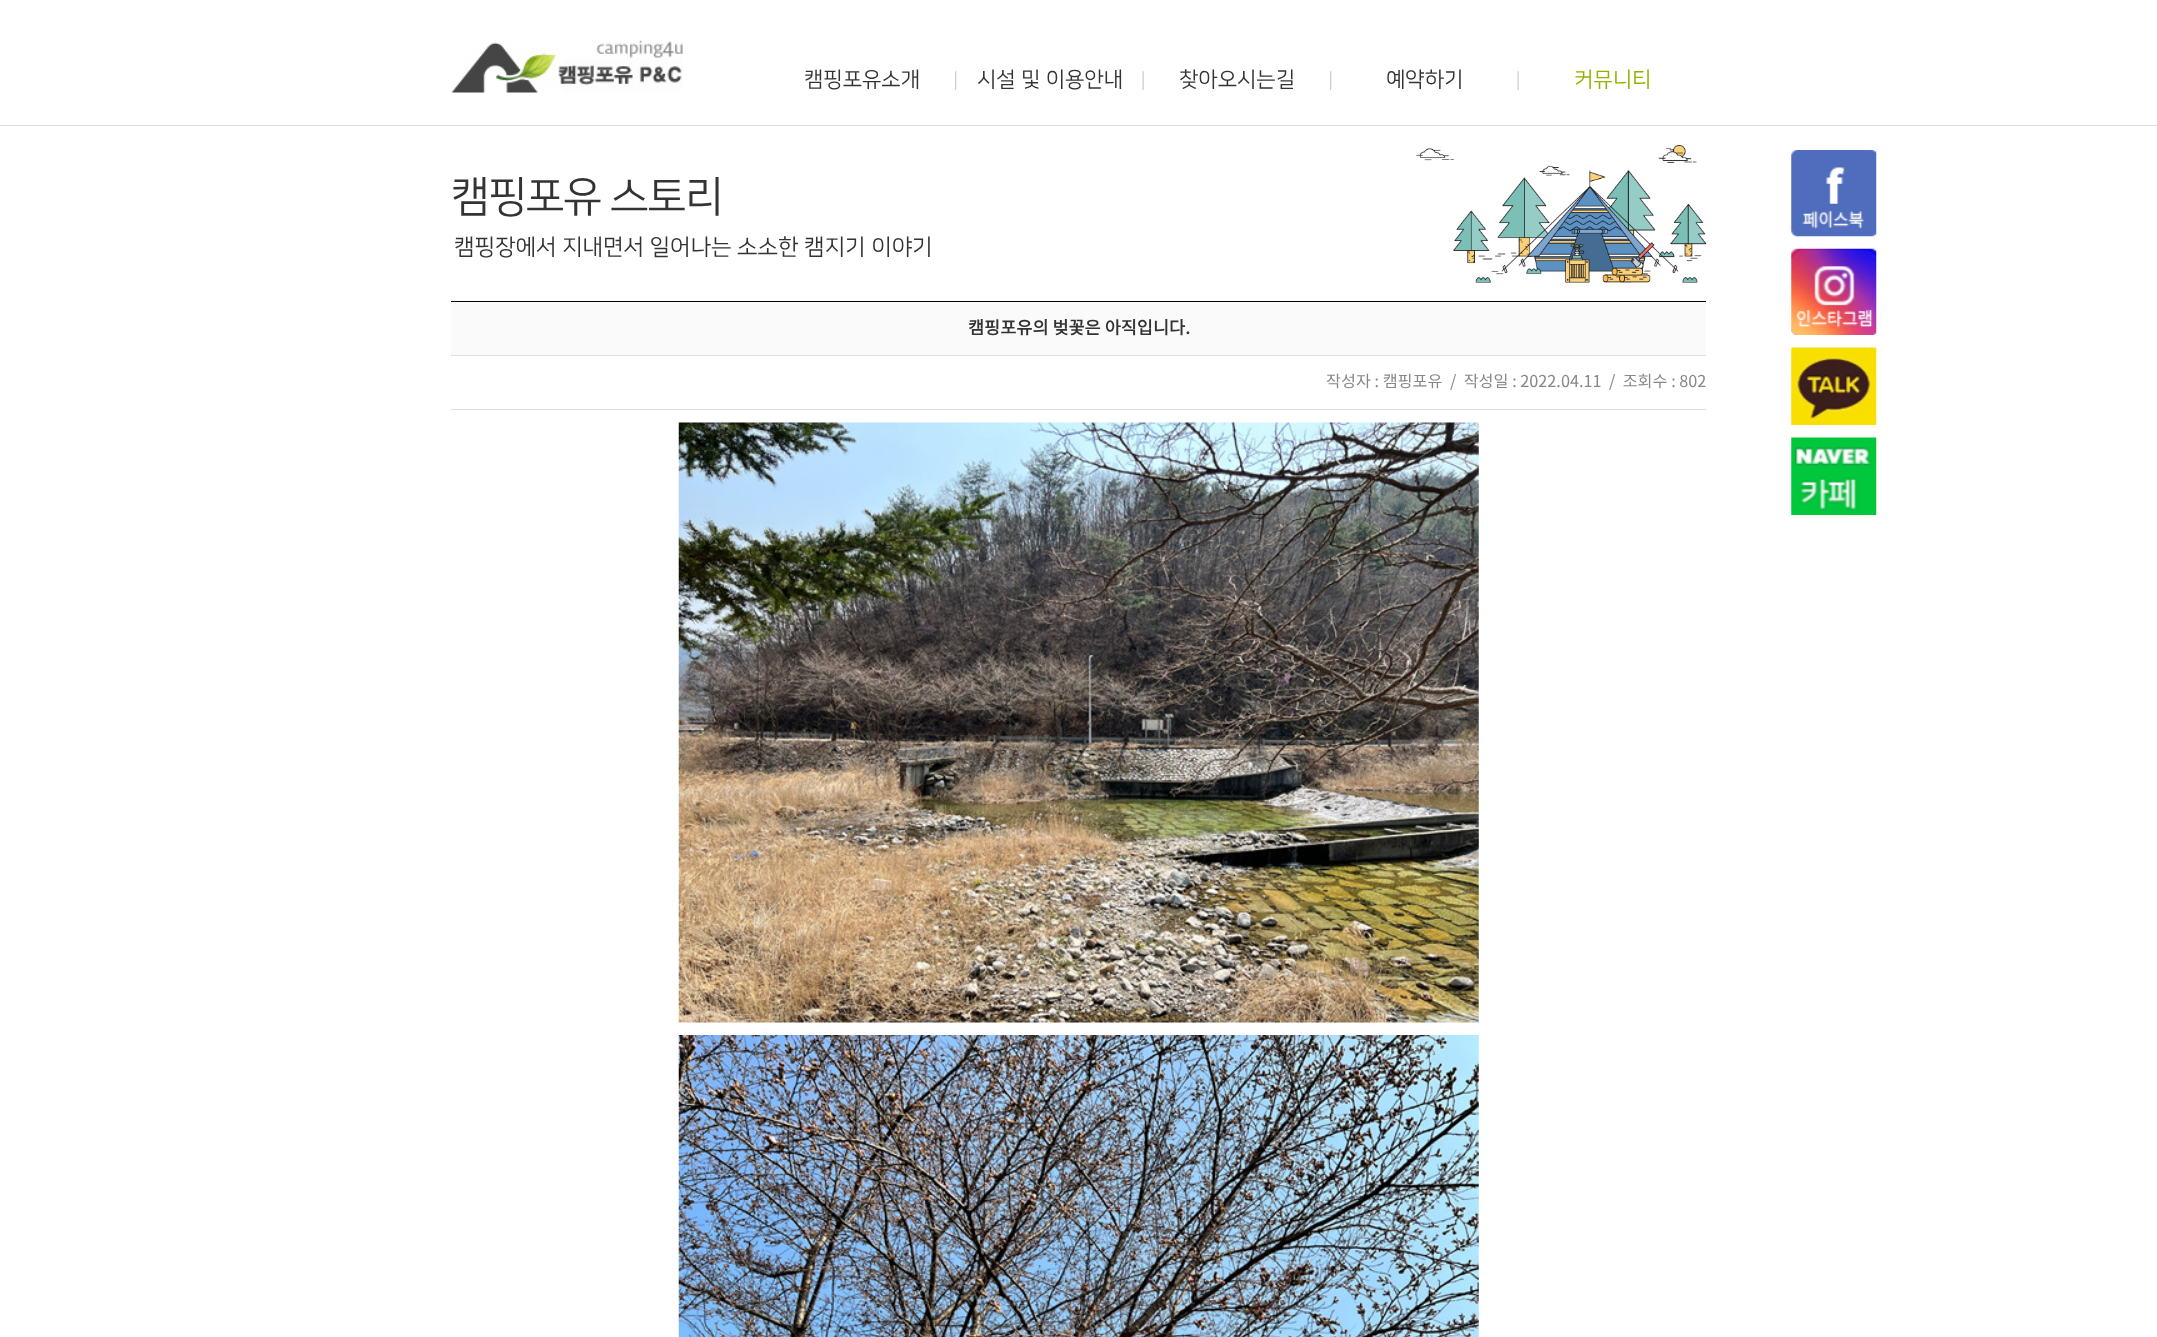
(async () => {
    const canvas = document.querySelector("canvas");
    canvas.width = 2157;
    canvas.height = 1337;
    const context = canvas.getContext("2d");
    context.miterLimit = 4;
    context.fontKerning = "normal";
    function write(s, x, y, font, color) {
        context.font = font;
        context.fillStyle = color;
        context.fillText(s, x, y);
    }
    function block(x, y, w, h, color) {
        context.fillStyle = color;
        context.fillRect(x, y, w, h);
    }
    async function photo(src, x, y, w, h) {
        const img = new Image();
        img.src = src;
        await img.decode();
        context.drawImage(img, x, y, w, h);
    }

    block(0, 0, 2157, 1337, "rgb(255, 255, 255)");
    block(0, 125, 2157, 1, "rgb(222, 222, 222)");
    await photo("media/1.png", 451, 40, 232, 53);
    await photo("media/2.png", 955, 71, 2, 19);
    write("캠핑포유소개", 804, 86, "21.25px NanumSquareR", "rgb(51, 51, 51)");
    await photo("media/3.png", 1142, 71, 2, 19);
    write("시설 및 이용안내", 977, 86, "21.25px NanumSquareR", "rgb(51, 51, 51)");
    await photo("media/2.png", 1330, 71, 2, 19);
    write("찾아오시는길", 1179, 86, "21.25px NanumSquareR", "rgb(51, 51, 51)");
    await photo("media/3.png", 1517, 71, 2, 19);
    write("예약하기", 1386, 86, "21.25px NanumSquareR", "rgb(51, 51, 51)");
    write("커뮤니티", 1574, 86, "21.25px NanumSquareR", "rgb(145, 179, 0)");
    await photo("media/4.png", 1791, 150, 86, 87);
    await photo("media/5.png", 1791, 248, 86, 87);
    await photo("media/6.png", 1791, 347, 86, 78);
    await photo("media/7.png", 1791, 437, 86, 78);
    context.letterSpacing = "-1.25px";
    write("캠핑포유 스토리", 451, 210, "42.5px NanumSquareR", "rgb(51, 51, 51)");
    await photo("media/8.png", 1416, 145, 291, 138);
    context.letterSpacing = "0px";
    write("캠핑장에서 지내면서 일어나는 소소한 캠지기 이야기", 454, 254, "22.5px NanumSquareR", "rgb(51, 51, 51)");
    block(451, 301, 1255, 1, "rgb(0, 0, 0)");
    block(451, 303, 1255, 52, "rgb(250, 250, 250)");
    block(451, 355, 1255, 1, "rgb(222, 222, 222)");
    write("캠핑포유의 벚꽃은 아직입니다.", 968, 334, "bold 17.5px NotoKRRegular", "rgb(51, 51, 51)");
    block(451, 409, 1255, 1, "rgb(222, 222, 222)");
    write("작성자 : 캠핑포유", 1326, 387, "16.25px NotoKRRegular", "rgb(136, 136, 136)");
    write("/  작성일 : 2022.04.11", 1450, 387, "16.25px NotoKRRegular", "rgb(136, 136, 136)");
    write("/  조회수 : 802", 1609, 387, "16.25px NotoKRRegular", "rgb(136, 136, 136)");
    await photo("media/9.png", 678, 422, 801, 601);
    await photo("media/10.png", 678, 1035, 801, 302);
})();
